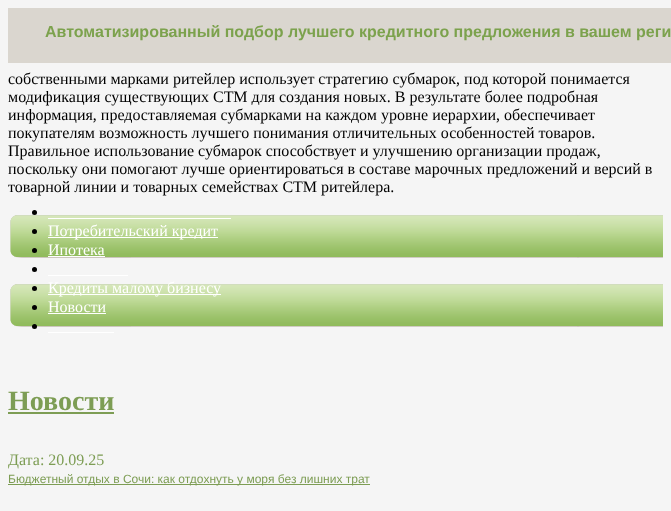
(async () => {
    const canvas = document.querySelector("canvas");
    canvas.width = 671;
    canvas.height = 511;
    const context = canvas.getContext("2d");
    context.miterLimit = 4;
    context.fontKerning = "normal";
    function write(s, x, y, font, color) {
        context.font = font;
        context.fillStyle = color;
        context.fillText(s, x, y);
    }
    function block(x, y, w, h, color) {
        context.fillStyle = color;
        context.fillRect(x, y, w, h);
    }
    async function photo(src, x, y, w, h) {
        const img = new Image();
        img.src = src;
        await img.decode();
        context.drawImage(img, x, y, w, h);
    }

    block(0, 0, 671, 511, "rgb(245, 245, 245)");
    block(8, 8, 663, 55, "rgb(218, 214, 207)");
    write("Автоматизированный подбор лучшего кредитного предложения в вашем реги", 45, 37, "bold 16px Liberation Sans", "rgb(124, 162, 77)");
    write("собственными марками ритейлер использует стратегию субмарок, под которой понимается", 8, 84, "16px Liberation Serif", "rgb(0, 0, 0)");
    write("модификация существующих СТМ для создания новых. В результате более подробная", 8, 102, "16px Liberation Serif", "rgb(0, 0, 0)");
    write("информация, предоставляемая субмарками на каждом уровне иерархии, обеспечивает", 8, 120, "16px Liberation Serif", "rgb(0, 0, 0)");
    write("покупателям возможность лучшего понимания отличительных особенностей товаров.", 8, 138, "16px Liberation Serif", "rgb(0, 0, 0)");
    write("Правильное использование субмарок способствует и улучшению организации продаж,", 8, 156, "16px Liberation Serif", "rgb(0, 0, 0)");
    write("поскольку они помогают лучше ориентироваться в составе марочных предложений и версий в", 8, 174, "16px Liberation Serif", "rgb(0, 0, 0)");
    write("товарной линии и товарных семействах СТМ ритейлера.", 8, 192, "16px Liberation Serif", "rgb(0, 0, 0)");
    await photo("media/1.png", 10, 215, 653, 112);
    context.beginPath();
    context.arc(34.5, 212.5, 2.5, 0, Math.PI * 2);
    context.fill();
    block(48, 218, 183, 1, "rgb(255, 255, 255)");
    context.fillStyle = "rgb(0, 0, 0)";
    context.beginPath();
    context.arc(34.5, 231.5, 2.5, 0, Math.PI * 2);
    context.fill();
    block(48, 237, 170, 1, "rgb(255, 255, 255)");
    write("Потребительский кредит", 48, 236, "16px Liberation Serif", "rgb(255, 255, 255)");
    context.fillStyle = "rgb(0, 0, 0)";
    context.beginPath();
    context.arc(34.5, 250.5, 2.5, 0, Math.PI * 2);
    context.fill();
    write("Ипотека", 48, 255, "16px Liberation Serif", "rgb(255, 255, 255)");
    block(48, 256, 57, 1, "rgb(255, 255, 255)");
    context.fillStyle = "rgb(0, 0, 0)";
    context.beginPath();
    context.arc(34.5, 269.5, 2.5, 0, Math.PI * 2);
    context.fill();
    block(48, 275, 80, 1, "rgb(255, 255, 255)");
    context.fillStyle = "rgb(0, 0, 0)";
    context.beginPath();
    context.arc(34.5, 288.5, 2.5, 0, Math.PI * 2);
    context.fill();
    block(48, 294, 173, 1, "rgb(255, 255, 255)");
    write("Кредиты малому бизнесу", 48, 293, "16px Liberation Serif", "rgb(255, 255, 255)");
    context.fillStyle = "rgb(0, 0, 0)";
    context.beginPath();
    context.arc(34.5, 307.5, 2.5, 0, Math.PI * 2);
    context.fill();
    write("Новости", 48, 312, "16px Liberation Serif", "rgb(255, 255, 255)");
    block(48, 313, 58, 1, "rgb(255, 255, 255)");
    context.fillStyle = "rgb(0, 0, 0)";
    context.beginPath();
    context.arc(34.5, 326.5, 2.5, 0, Math.PI * 2);
    context.fill();
    block(48, 332, 66, 1, "rgb(255, 255, 255)");
    write("Новости", 8, 410, "bold 28px Liberation Serif", "rgb(125, 157, 84)");
    block(8, 412, 106, 2, "rgb(125, 157, 84)");
    write("Дата: 20.09.25", 8, 465, "16px Liberation Serif", "rgb(125, 157, 84)");
    block(8, 484, 362, 1, "rgb(125, 157, 84)");
    write("Бюджетный отдых в Сочи: как отдохнуть у моря без лишних трат", 8, 483, "12px Liberation Sans", "rgb(125, 157, 84)");
})();
